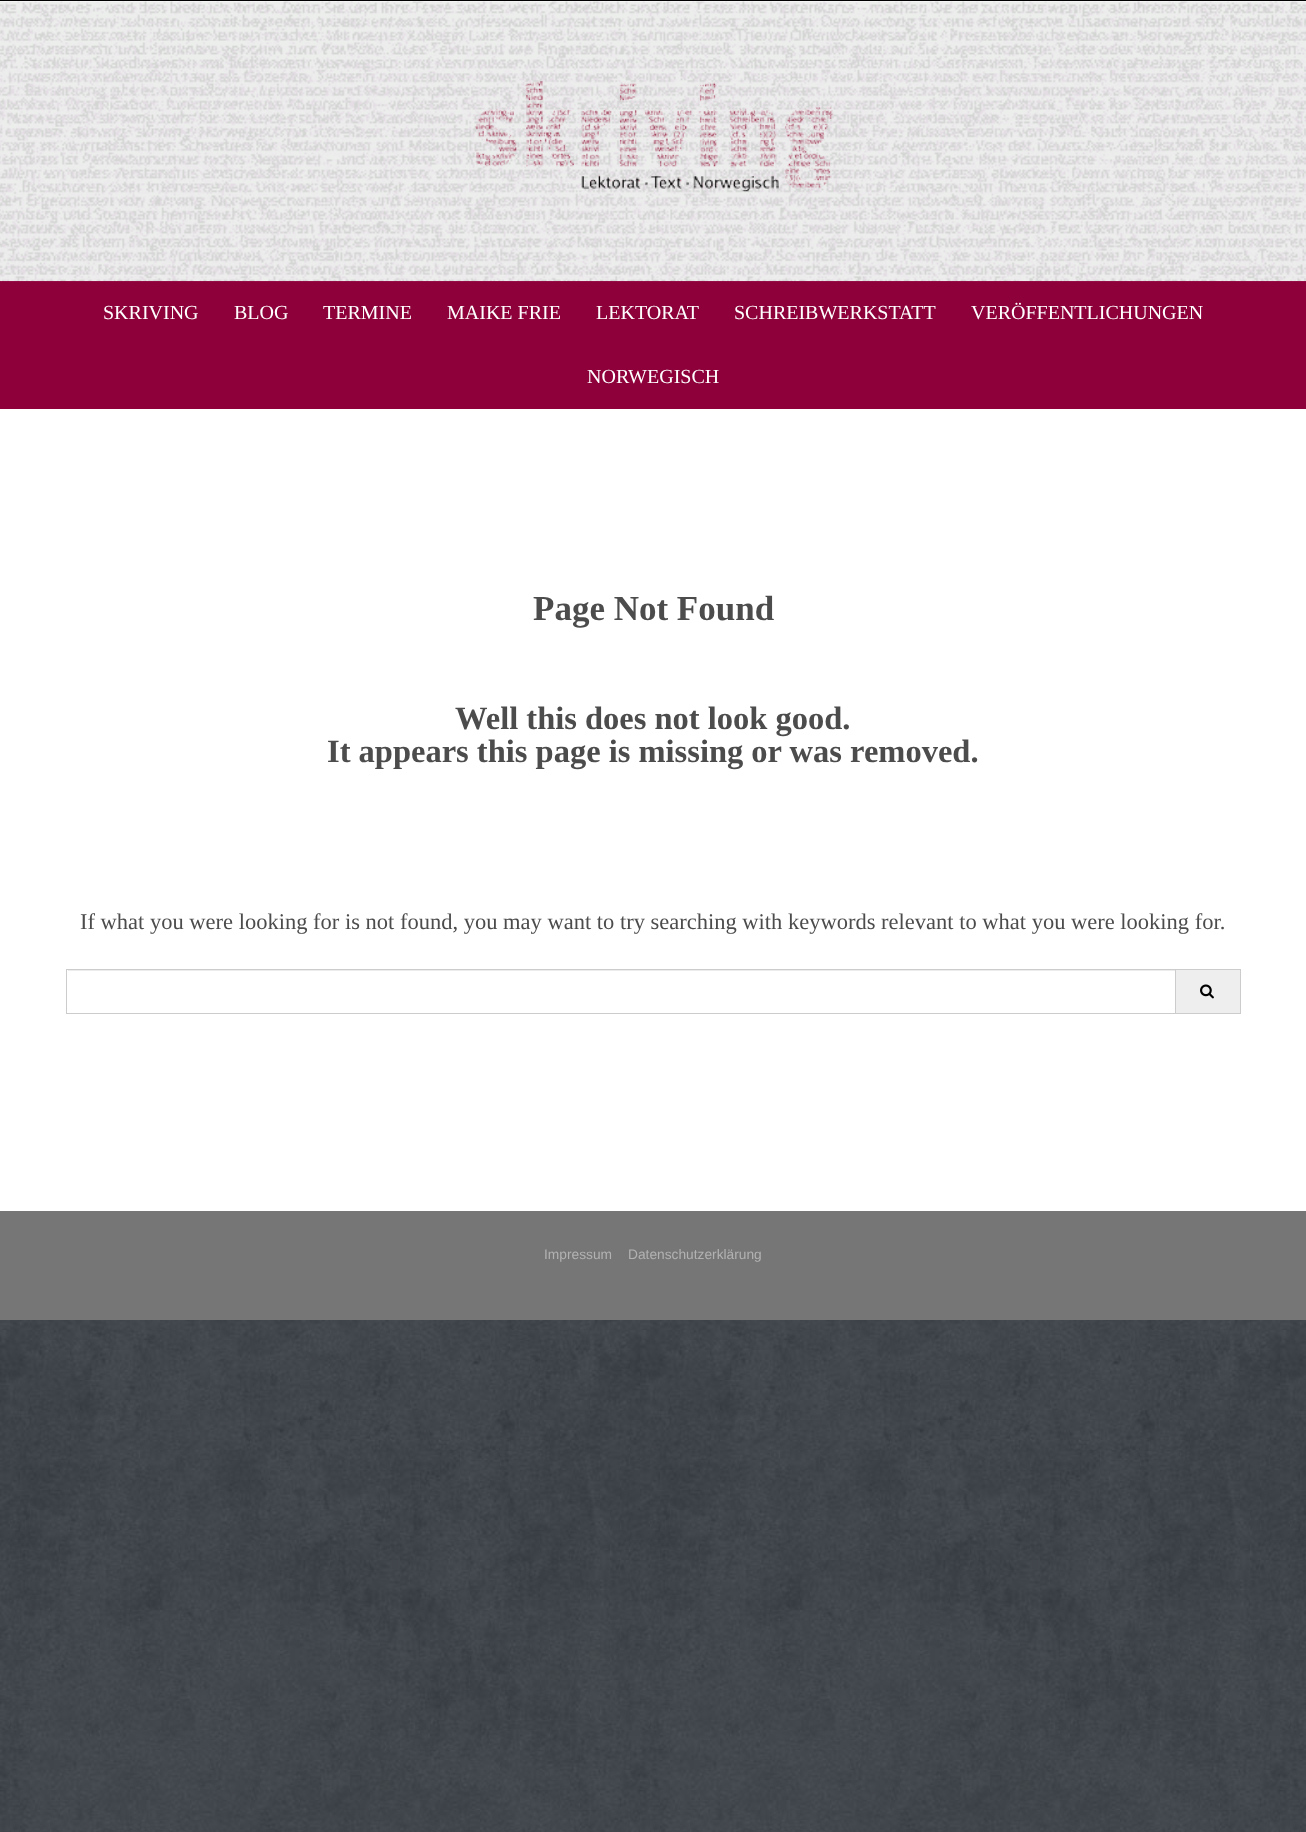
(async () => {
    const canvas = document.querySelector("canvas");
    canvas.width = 1306;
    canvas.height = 1832;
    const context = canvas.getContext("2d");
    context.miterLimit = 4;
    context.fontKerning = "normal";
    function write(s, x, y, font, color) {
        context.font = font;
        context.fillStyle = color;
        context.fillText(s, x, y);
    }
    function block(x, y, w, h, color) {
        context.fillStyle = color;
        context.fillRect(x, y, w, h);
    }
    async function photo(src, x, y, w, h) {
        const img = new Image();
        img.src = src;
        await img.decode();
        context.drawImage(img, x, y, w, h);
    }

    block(0, 0, 1306, 1832, "rgb(255, 255, 255)");
    await photo("media/1.png", 0, 1320, 1306, 512);
    block(0, 0, 1306, 1, "rgb(0, 0, 0)");
    block(0, 281, 1306, 128, "rgb(141, 0, 58)");
    await photo("media/2.png", 0, 1, 1306, 281);
    await photo("media/3.png", 475, 81, 358, 111);
    write("SKRIVING", 103, 319, "20px Liberation Serif", "rgb(255, 255, 255)");
    write("BLOG", 234, 319, "20px Liberation Serif", "rgb(255, 255, 255)");
    write("TERMINE", 323, 319, "20px Liberation Serif", "rgb(255, 255, 255)");
    write("MAIKE FRIE", 447, 319, "20px Liberation Serif", "rgb(255, 255, 255)");
    write("LEKTORAT", 596, 319, "20px Liberation Serif", "rgb(255, 255, 255)");
    write("SCHREIBWERKSTATT", 734, 319, "20px Liberation Serif", "rgb(255, 255, 255)");
    write("VERÖFFENTLICHUNGEN", 971, 319, "20px Liberation Serif", "rgb(255, 255, 255)");
    write("NORWEGISCH", 587, 383, "20px Liberation Serif", "rgb(255, 255, 255)");
    write("Page Not Found", 533, 620, "bold 35px Liberation Serif", "rgb(76, 76, 76)");
    write("Well this does not look good.", 455, 729, "bold 32.5px Liberation Serif", "rgb(76, 76, 76)");
    write("It appears this page is missing or was removed.", 327, 762, "bold 32.5px Liberation Serif", "rgb(76, 76, 76)");
    write("If what you were looking for is not found, you may want to try searching with keywords relevant to what you were looking for.", 80, 929, "22.5px Liberation Serif", "rgb(76, 76, 76)");
    block(1176, 970, 64, 43, "rgb(238, 238, 238)");
    context.strokeStyle = "rgb(204, 204, 204)";
    context.strokeRect(1174.5, 969.5, 66, 44);
    block(1174, 970, 1, 43, "rgb(255, 255, 255)");
    block(68, 970, 1107, 1, "rgb(236, 236, 236)");
    context.strokeRect(66.5, 969.5, 1109, 44);
    await photo("media/4.png", 1200, 984, 14, 15);
    block(0, 1211, 1306, 109, "rgb(118, 118, 118)");
    write("Impressum", 544, 1259, "13.75px Liberation Sans", "rgb(178, 178, 178)");
    write("Datenschutzerklärung", 628, 1259, "13.75px Liberation Sans", "rgb(178, 178, 178)");
})();
